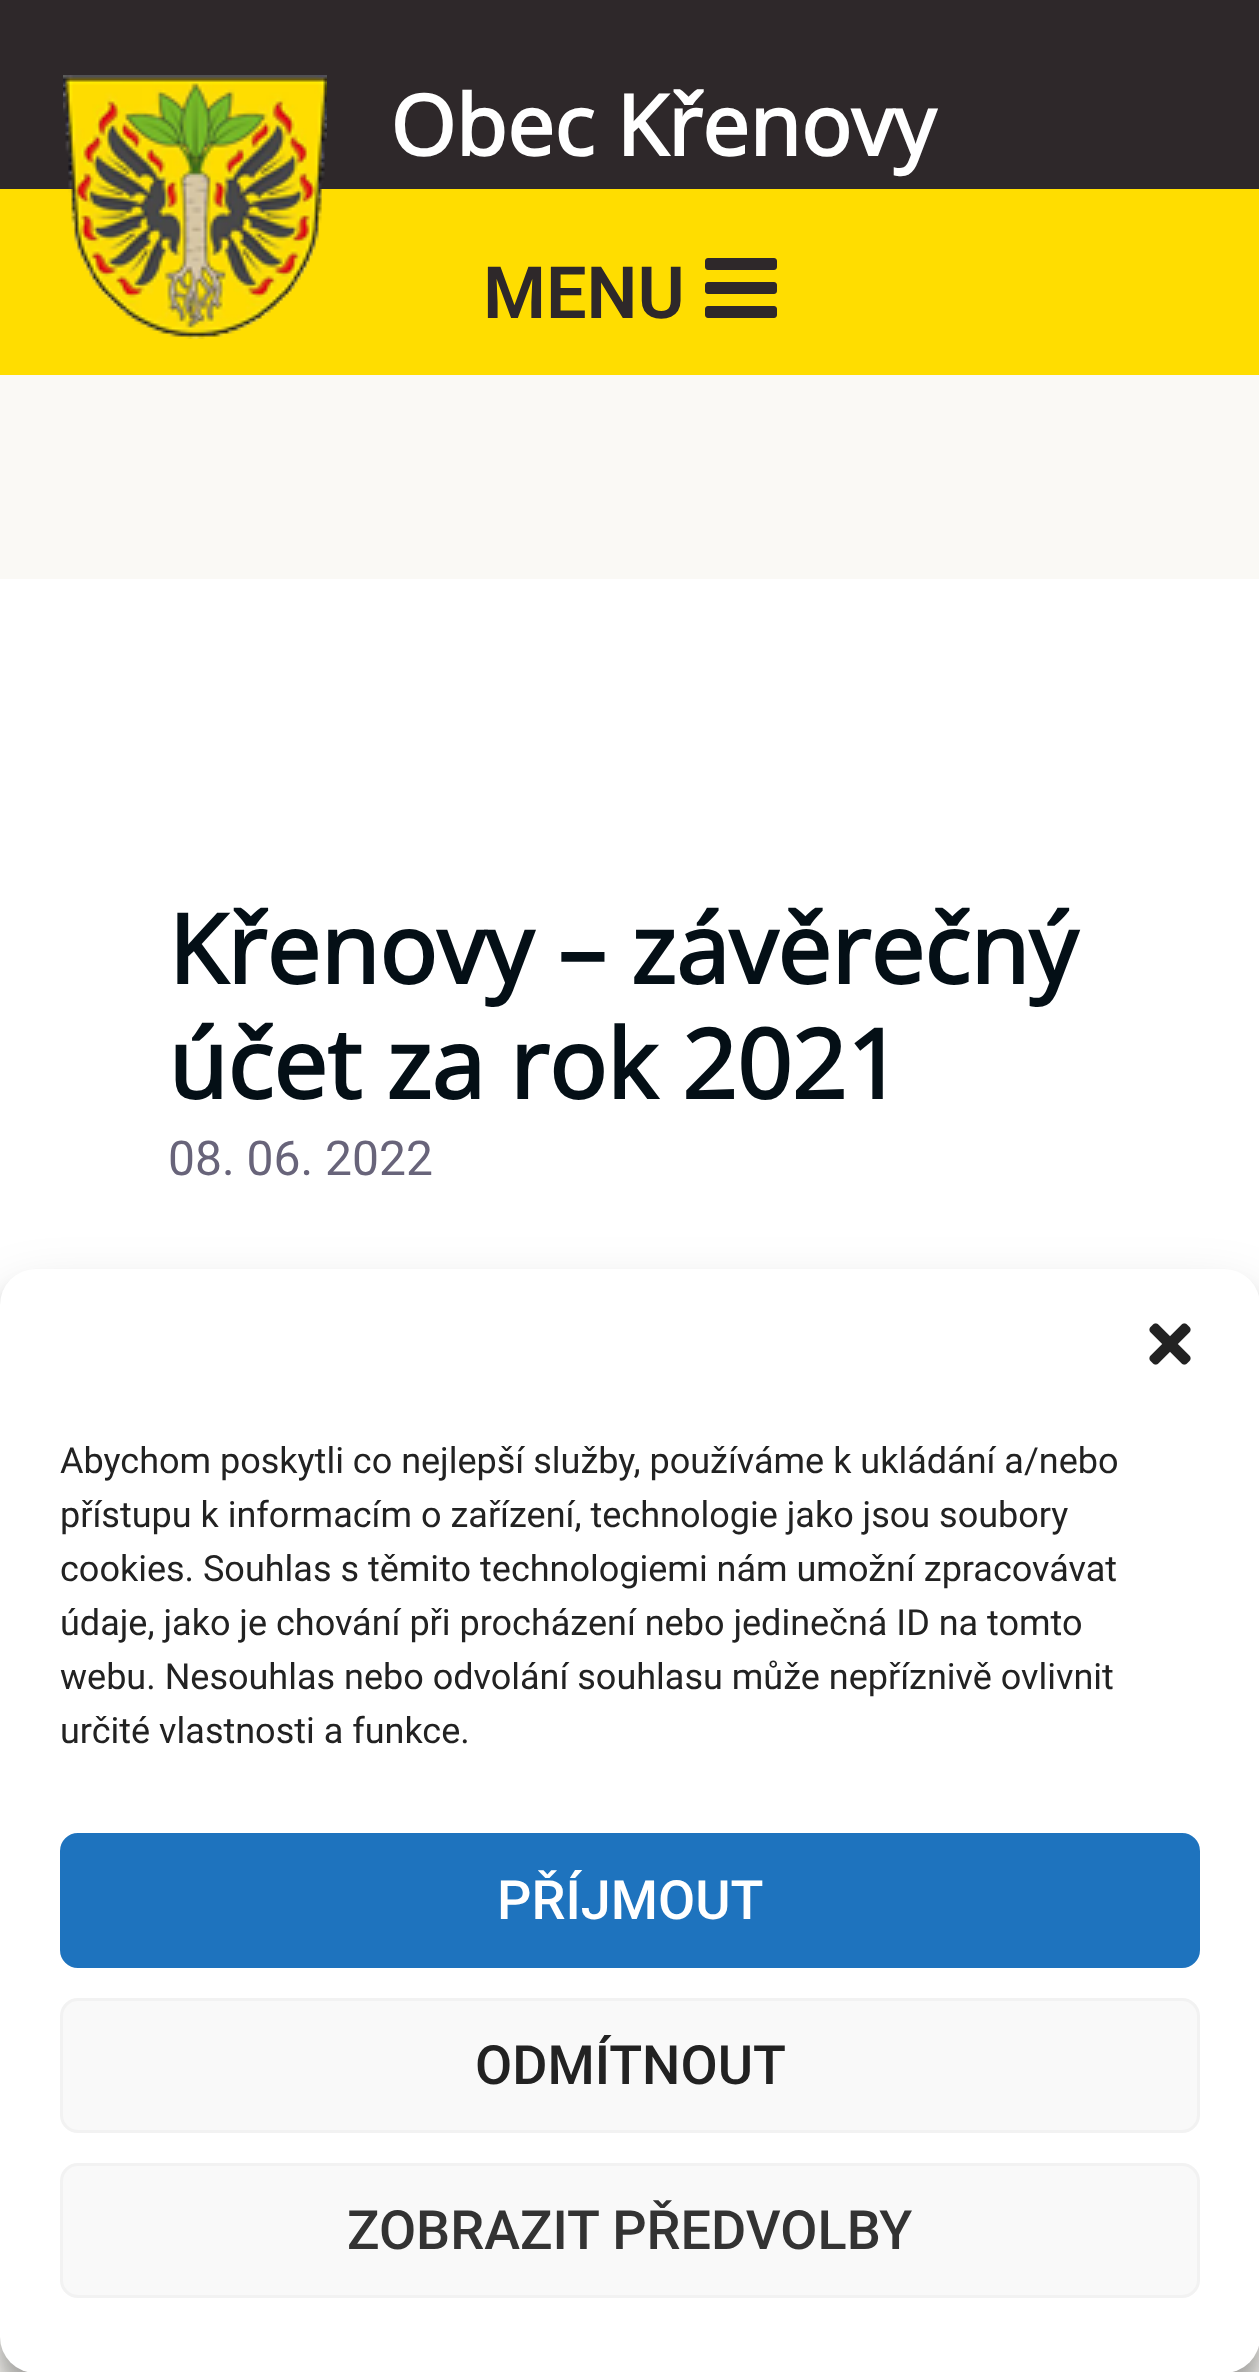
(async () => {
    const canvas = document.querySelector("canvas");
    canvas.width = 1259;
    canvas.height = 2372;
    const context = canvas.getContext("2d");
    context.miterLimit = 4;
    context.fontKerning = "normal";
    function write(s, x, y, font, color) {
        context.font = font;
        context.fillStyle = color;
        context.fillText(s, x, y);
    }
    function block(x, y, w, h, color) {
        context.fillStyle = color;
        context.fillRect(x, y, w, h);
    }
    function card(x, y, w, h, r, color) {
        context.fillStyle = color;
        context.beginPath();
        context.roundRect(x, y, w, h, r);
        context.fill();
    }
    async function photo(src, x, y, w, h) {
        const img = new Image();
        img.src = src;
        await img.decode();
        context.drawImage(img, x, y, w, h);
    }

    block(0, 0, 1259, 2372, "rgb(250, 249, 245)");
    block(0, 189, 1259, 186, "rgb(255, 221, 0)");
    block(0, 0, 1259, 189, "rgb(46, 40, 42)");
    await photo("media/1.png", 63, 75, 264, 264);
    write("Obec Křenovy", 390, 156, "bold 84px Open Sans", "rgb(255, 255, 255)");
    write("MENU", 483, 318, "600 72px Roboto", "rgb(46, 40, 42)");
    await photo("media/2.png", 705, 258, 72, 60);
    block(0, 579, 1259, 726, "rgb(255, 255, 255)");
    write("Křenovy – závěrečný", 168, 984, "bold 96px Open Sans", "rgb(4, 15, 22)");
    write("účet za rok 2021", 168, 1099, "bold 96px Open Sans", "rgb(4, 15, 22)");
    write("08. 06. 2022", 168, 1175, "48px Roboto", "rgb(104, 100, 122)");
    context.fillStyle = "rgba(0, 0, 0, 0.23)";
    context.filter = "blur(9px)";
    context.beginPath();
    context.roundRect(0, 1287, 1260, 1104, 36);
    context.fill();
    context.filter = "none";
    context.fillStyle = "rgba(0, 0, 0, 0.19)";
    context.filter = "blur(30px)";
    context.beginPath();
    context.roundRect(0, 1299, 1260, 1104, 36);
    context.fill();
    context.filter = "none";
    card(0, 1269, 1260, 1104, 36, "rgb(255, 255, 255)");
    await photo("media/3.png", 1149, 1323, 42, 42);
    write("Abychom poskytli co nejlepší služby, používáme k ukládání a/nebo", 60, 1473, "36px Roboto", "rgb(34, 34, 34)");
    write("přístupu k informacím o zařízení, technologie jako jsou soubory", 60, 1527, "36px Roboto", "rgb(34, 34, 34)");
    write("cookies. Souhlas s těmito technologiemi nám umožní zpracovávat", 60, 1581, "36px Roboto", "rgb(34, 34, 34)");
    write("údaje, jako je chování při procházení nebo jedinečná ID na tomto", 60, 1635, "36px Roboto", "rgb(34, 34, 34)");
    write("webu. Nesouhlas nebo odvolání souhlasu může nepříznivě ovlivnit", 60, 1689, "36px Roboto", "rgb(34, 34, 34)");
    write("určité vlastnosti a funkce.", 60, 1743, "36px Roboto", "rgb(34, 34, 34)");
    context.fillStyle = "rgb(30, 115, 190)";
    context.beginPath();
    context.roundRect(61.5, 1834.5, 1137, 132, 16.5);
    context.fill();
    context.strokeStyle = "rgb(30, 115, 190)";
    context.lineWidth = 3;
    context.stroke();
    write("PŘÍJMOUT", 497, 1919, "500 54px Roboto", "rgb(255, 255, 255)");
    context.fillStyle = "rgb(249, 249, 249)";
    context.beginPath();
    context.roundRect(61.5, 1999.5, 1137, 132, 16.5);
    context.fill();
    context.strokeStyle = "rgb(242, 242, 242)";
    context.stroke();
    write("ODMÍTNOUT", 475, 2084, "500 54px Roboto", "rgb(34, 34, 34)");
    context.fillStyle = "rgb(249, 249, 249)";
    context.beginPath();
    context.roundRect(61.5, 2164.5, 1137, 132, 16.5);
    context.fill();
    context.stroke();
    write("ZOBRAZIT PŘEDVOLBY", 347, 2249, "500 54px Roboto", "rgb(51, 51, 51)");
})();
